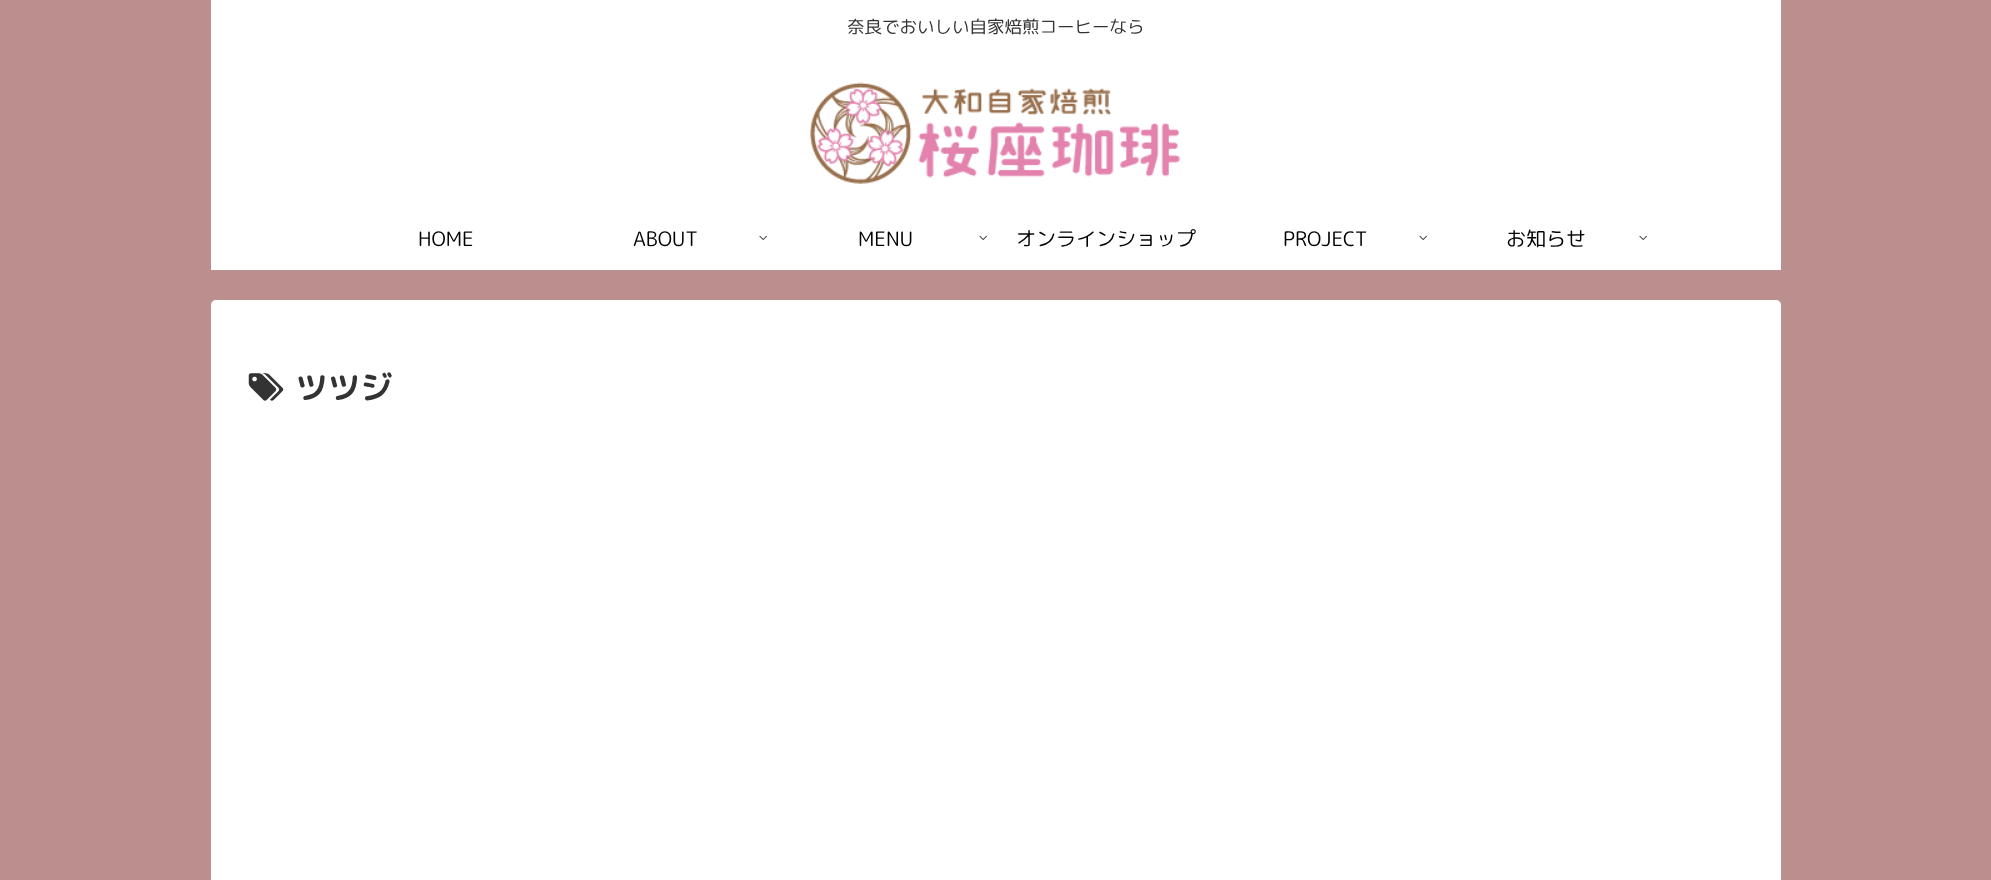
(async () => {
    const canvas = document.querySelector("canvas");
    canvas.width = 1991;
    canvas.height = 880;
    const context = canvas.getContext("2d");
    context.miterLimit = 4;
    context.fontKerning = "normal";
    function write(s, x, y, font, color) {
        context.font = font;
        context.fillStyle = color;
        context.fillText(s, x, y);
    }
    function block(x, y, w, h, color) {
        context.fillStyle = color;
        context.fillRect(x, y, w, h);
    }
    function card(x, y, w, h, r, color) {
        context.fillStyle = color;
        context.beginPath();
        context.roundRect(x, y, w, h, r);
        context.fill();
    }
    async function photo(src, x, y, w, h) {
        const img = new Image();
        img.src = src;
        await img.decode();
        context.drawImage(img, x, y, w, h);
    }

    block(0, 0, 1991, 880, "rgb(188, 143, 143)");
    block(211, 0, 1570, 270, "rgb(255, 255, 255)");
    write("奈良でおいしい自家焙煎コーヒーなら", 847, 33, "17.5px 'Rounded Mplus 1c'", "rgb(51, 51, 51)");
    await photo("media/1.png", 809, 82, 372, 102);
    write("HOME", 418, 246, "20px 'Rounded Mplus 1c'", "rgb(0, 0, 0)");
    write("ABOUT", 633, 246, "20px 'Rounded Mplus 1c'", "rgb(0, 0, 0)");
    await photo("media/2.png", 759, 235, 8, 6);
    write("MENU", 858, 246, "20px 'Rounded Mplus 1c'", "rgb(0, 0, 0)");
    await photo("media/2.png", 979, 235, 8, 6);
    write("オンラインショップ", 1016, 246, "20px 'Rounded Mplus 1c'", "rgb(0, 0, 0)");
    write("PROJECT", 1283, 246, "20px 'Rounded Mplus 1c'", "rgb(0, 0, 0)");
    await photo("media/2.png", 1419, 235, 8, 6);
    write("お知らせ", 1506, 246, "20px 'Rounded Mplus 1c'", "rgb(0, 0, 0)");
    await photo("media/2.png", 1639, 235, 8, 6);
    card(211, 300, 1570, 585, 5, "rgb(255, 255, 255)");
    await photo("media/3.png", 248, 373, 36, 28);
    write("ツツジ", 295, 399, "bold 32.5px 'Rounded Mplus 1c Bold'", "rgb(51, 51, 51)");
})();
